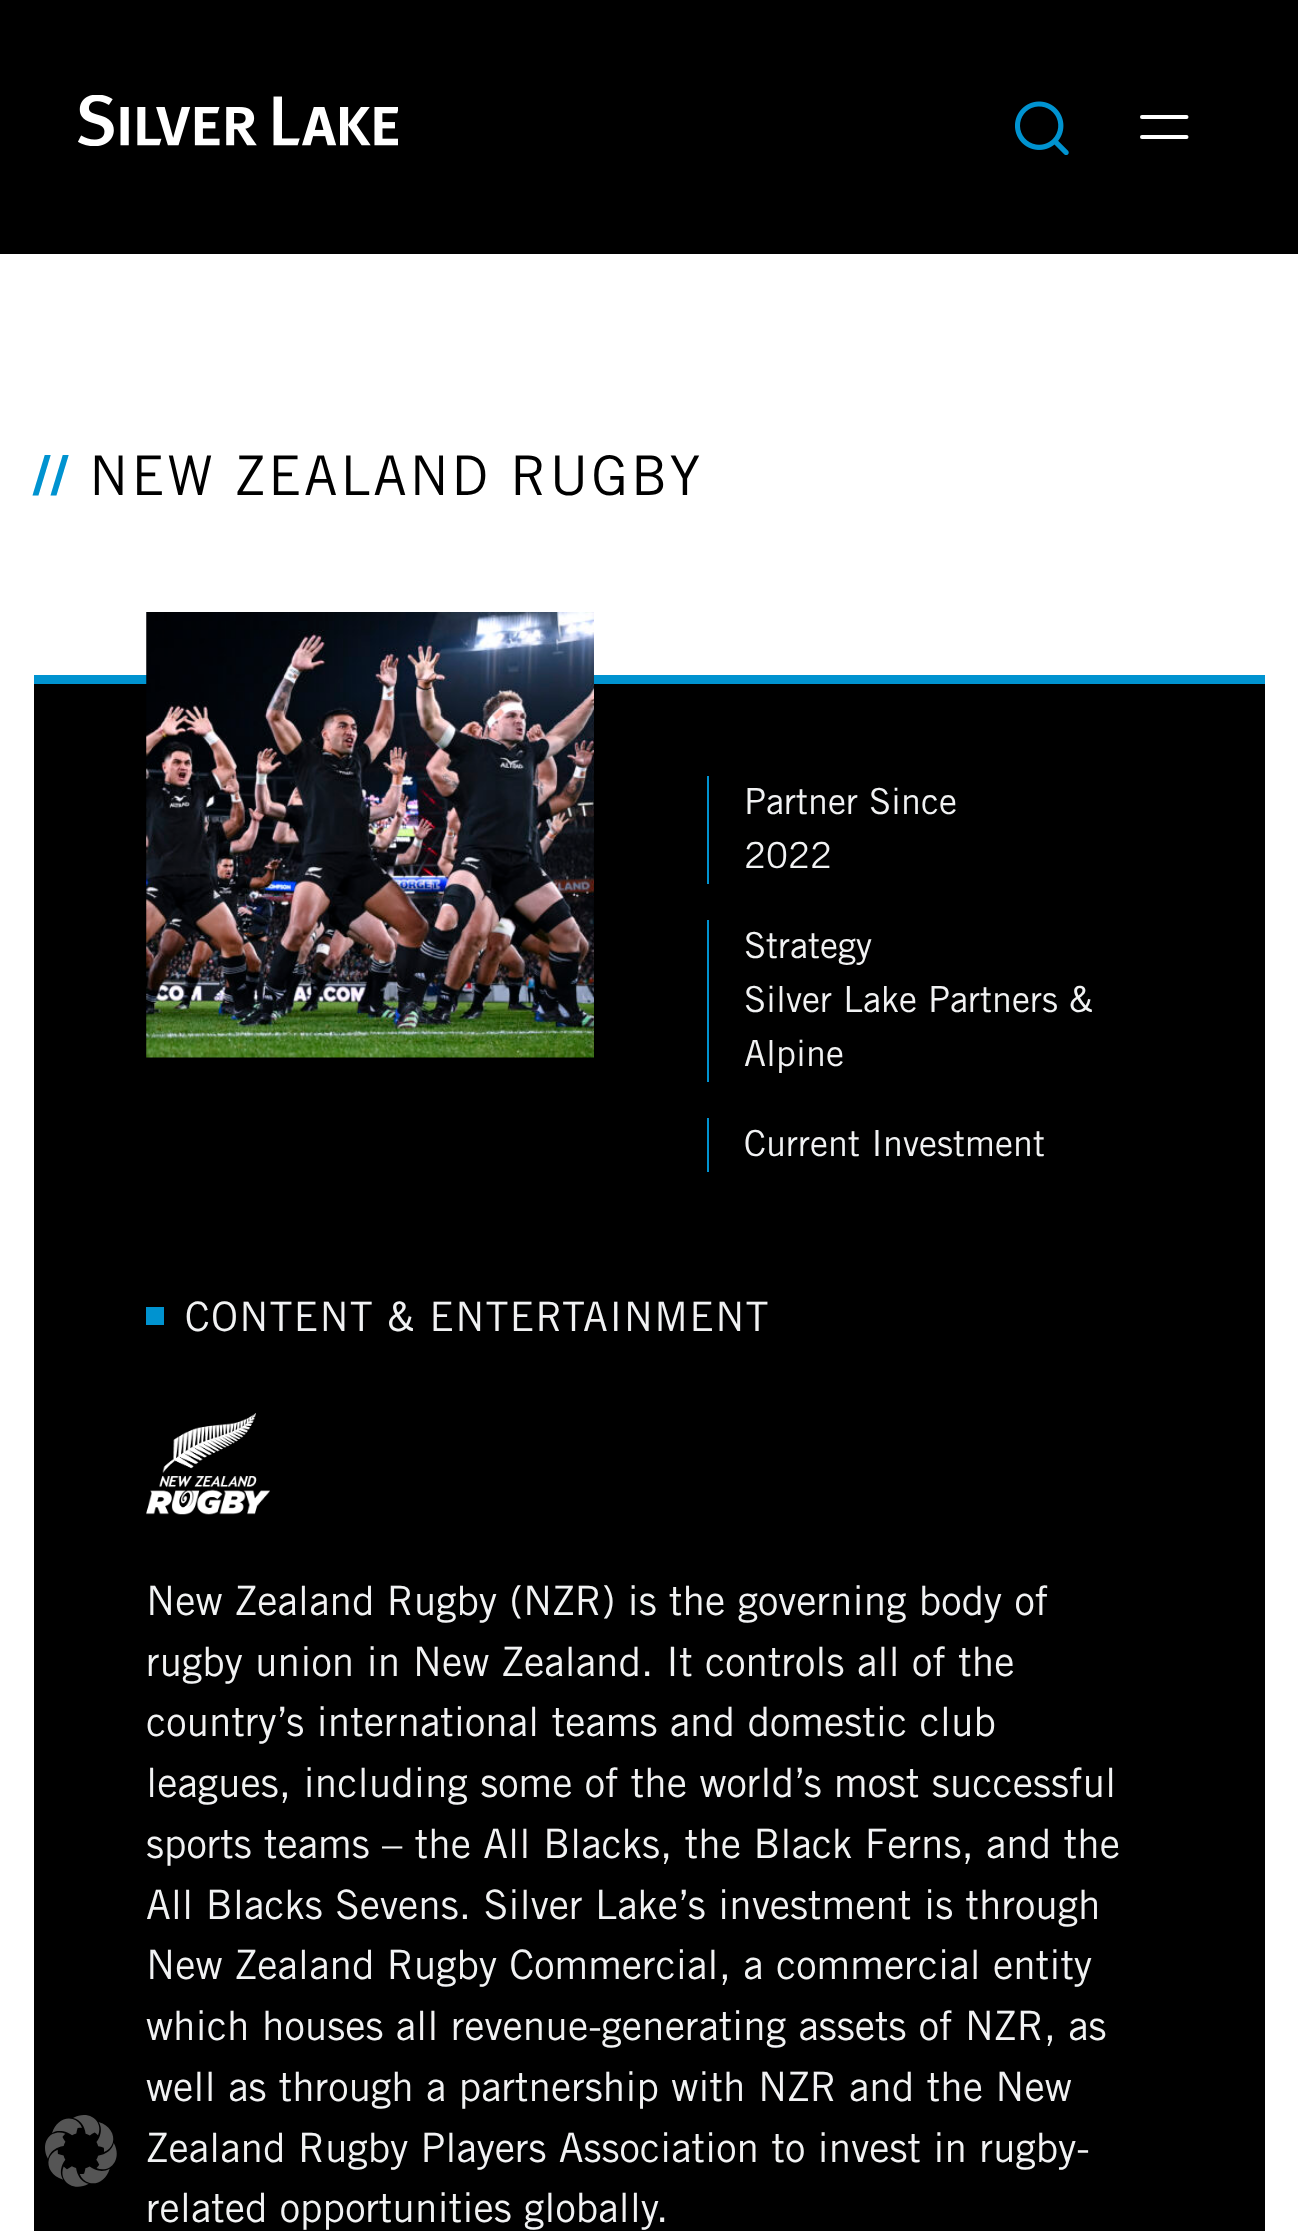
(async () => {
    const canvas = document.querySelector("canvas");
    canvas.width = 1298;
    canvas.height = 2231;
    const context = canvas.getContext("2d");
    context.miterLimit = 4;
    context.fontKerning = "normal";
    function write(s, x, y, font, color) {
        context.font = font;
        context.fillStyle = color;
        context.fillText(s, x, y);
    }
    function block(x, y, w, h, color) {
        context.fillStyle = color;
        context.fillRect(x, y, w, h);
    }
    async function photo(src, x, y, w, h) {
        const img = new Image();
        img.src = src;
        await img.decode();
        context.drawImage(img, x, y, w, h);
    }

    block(0, 0, 1298, 2231, "rgb(255, 255, 255)");
    block(0, 0, 1298, 254, "rgb(0, 0, 0)");
    await photo("media/1.png", 78, 95, 320, 51);
    await photo("media/2.png", 1015, 101, 54, 54);
    context.beginPath();
    context.moveTo(1142, 117);
    context.lineTo(1186.5, 117);
    context.moveTo(1142, 137);
    context.lineTo(1186.5, 137);
    context.strokeStyle = "rgb(255, 255, 255)";
    context.lineWidth = 4;
    context.lineCap = "round";
    context.stroke();
    context.letterSpacing = "2.75px";
    write("//", 34, 495, "bold 54.6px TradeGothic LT", "rgb(0, 147, 208)");
    write("NEW ZEALAND RUGBY", 89, 495, "54.6px TradeGothic LT", "rgb(0, 0, 0)");
    block(34, 684, 1231, 1547, "rgb(0, 0, 0)");
    block(34, 675, 1231, 9, "rgb(0, 147, 208)");
    await photo("media/3.png", 146, 612, 448, 446);
    block(707, 776, 2, 108, "rgb(0, 147, 208)");
    context.letterSpacing = "0px";
    write("Partner Since", 744, 814, "36px TradeGothic LT", "rgb(241, 242, 243)");
    write("2022", 744, 868, "36px TradeGothic LT", "rgb(241, 242, 243)");
    block(707, 920, 2, 162, "rgb(0, 147, 208)");
    write("Strategy", 744, 958, "36px TradeGothic LT", "rgb(241, 242, 243)");
    write("Silver Lake Partners &", 744, 1012, "36px TradeGothic LT", "rgb(241, 242, 243)");
    write("Alpine", 744, 1066, "36px TradeGothic LT", "rgb(241, 242, 243)");
    block(707, 1118, 2, 54, "rgb(0, 147, 208)");
    write("Current Investment", 744, 1156, "36px TradeGothic LT", "rgb(241, 242, 243)");
    block(146, 1307, 18, 18, "rgb(0, 147, 208)");
    context.letterSpacing = "1.25px";
    write("CONTENT & ENTERTAINMENT", 185, 1331, "40.5px TradeGothic LT", "rgb(241, 242, 243)");
    await photo("media/4.png", 146, 1413, 124, 102);
    context.letterSpacing = "0px";
    write("New Zealand Rugby (NZR) is the governing body of", 146, 1615, "40.5px TradeGothic LT", "rgb(241, 242, 243)");
    write("rugby union in New Zealand. It controls all of the", 146, 1676, "40.5px TradeGothic LT", "rgb(241, 242, 243)");
    write("country’s international teams and domestic club", 146, 1736, "40.5px TradeGothic LT", "rgb(241, 242, 243)");
    write("leagues, including some of the world’s most successful", 146, 1797, "40.5px TradeGothic LT", "rgb(241, 242, 243)");
    write("sports teams – the All Blacks, the Black Ferns, and the", 146, 1858, "40.5px TradeGothic LT", "rgb(241, 242, 243)");
    write("All Blacks Sevens. Silver Lake’s investment is through", 146, 1919, "40.5px TradeGothic LT", "rgb(241, 242, 243)");
    write("New Zealand Rugby Commercial, a commercial entity", 146, 1979, "40.5px TradeGothic LT", "rgb(241, 242, 243)");
    write("which houses all revenue-generating assets of NZR, as", 146, 2040, "40.5px TradeGothic LT", "rgb(241, 242, 243)");
    write("well as through a partnership with NZR and the New", 146, 2101, "40.5px TradeGothic LT", "rgb(241, 242, 243)");
    write("Zealand Rugby Players Association to invest in rugby-", 146, 2162, "40.5px TradeGothic LT", "rgb(241, 242, 243)");
    write("related opportunities globally.", 146, 2222, "40.5px TradeGothic LT", "rgb(241, 242, 243)");
    await photo("media/5.png", 45, 2115, 72, 72);
})();
